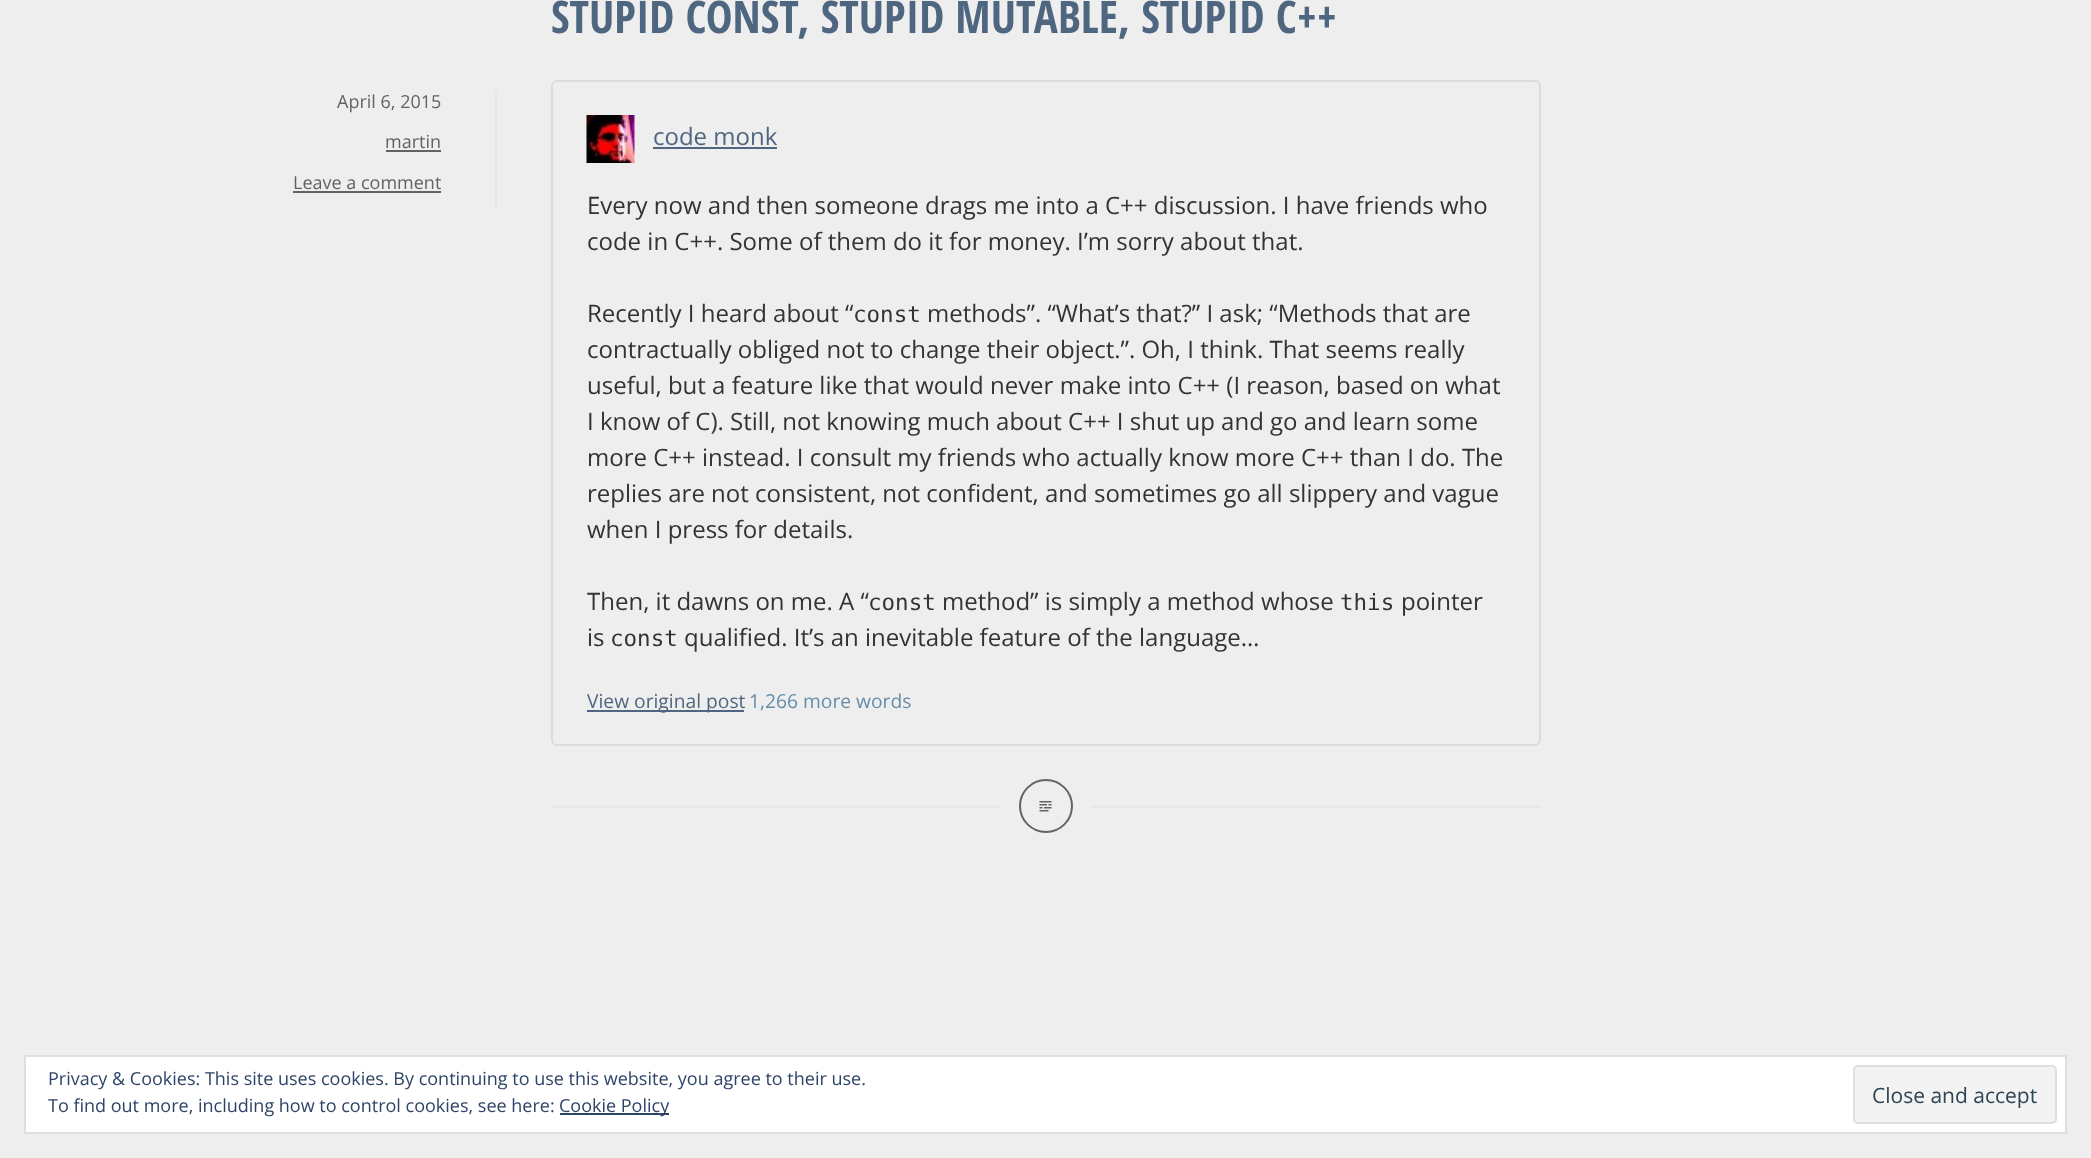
(async () => {
    const canvas = document.querySelector("canvas");
    canvas.width = 2091;
    canvas.height = 1158;
    const context = canvas.getContext("2d");
    context.miterLimit = 4;
    context.fontKerning = "normal";
    function write(s, x, y, font, color) {
        context.font = font;
        context.fillStyle = color;
        context.fillText(s, x, y);
    }
    function block(x, y, w, h, color) {
        context.fillStyle = color;
        context.fillRect(x, y, w, h);
    }
    async function photo(src, x, y, w, h) {
        const img = new Image();
        img.src = src;
        await img.decode();
        context.drawImage(img, x, y, w, h);
    }

    block(0, 0, 2091, 1158, "rgb(238, 238, 238)");
    block(551, 806, 990, 2, "rgb(231, 231, 231)");
    write("STUPID CONST, STUPID MUTABLE, STUPID C++", 551, 33, "bold 45px Open Sans Condensed", "rgb(79, 102, 129)");
    block(495, 89, 2, 121, "rgb(231, 231, 231)");
    write("April 6, 2015", 337, 108, "18px Open Sans", "rgb(99, 99, 99)");
    write("martin", 385, 148, "18px Open Sans", "rgb(99, 99, 99)");
    block(386, 150, 55, 2, "rgb(99, 99, 99)");
    write("Leave a comment", 293, 189, "18px Open Sans", "rgb(99, 99, 99)");
    block(293, 191, 148, 2, "rgb(99, 99, 99)");
    context.beginPath();
    context.roundRect(552, 81, 988, 664, 5);
    context.strokeStyle = "rgba(46, 68, 83, 0.1)";
    context.lineWidth = 2;
    context.stroke();
    await photo("media/1.png", 586, 115, 49, 48);
    write("code monk", 653, 145, "24px Open Sans", "rgb(79, 102, 129)");
    block(653, 147, 124, 2, "rgb(79, 102, 129)");
    write("Every now and then someone drags me into a C++ discussion. I have friends who", 587, 214, "24px Open Sans", "rgb(51, 51, 51)");
    write("code in C++. Some of them do it for money. I’m sorry about that.", 587, 250, "24px Open Sans", "rgb(51, 51, 51)");
    write("Recently I heard about “", 587, 322, "24px Open Sans", "rgb(51, 51, 51)");
    write("const", 853, 322, "22.5px DejaVu Sans Mono", "rgb(51, 51, 51)");
    write("methods”. “What’s that?” I ask; “Methods that are", 927, 322, "24px Open Sans", "rgb(51, 51, 51)");
    write("contractually obliged not to change their object.”. Oh, I think. That seems really", 587, 358, "24px Open Sans", "rgb(51, 51, 51)");
    write("useful, but a feature like that would never make into C++ (I reason, based on what", 587, 394, "24px Open Sans", "rgb(51, 51, 51)");
    write("I know of C). Still, not knowing much about C++ I shut up and go and learn some", 587, 430, "24px Open Sans", "rgb(51, 51, 51)");
    write("more C++ instead. I consult my friends who actually know more C++ than I do. The", 587, 466, "24px Open Sans", "rgb(51, 51, 51)");
    write("replies are not consistent, not confident, and sometimes go all slippery and vague", 587, 502, "24px Open Sans", "rgb(51, 51, 51)");
    write("when I press for details.", 587, 538, "24px Open Sans", "rgb(51, 51, 51)");
    write("Then, it dawns on me. A “", 587, 610, "24px Open Sans", "rgb(51, 51, 51)");
    write("const", 868, 610, "22.5px DejaVu Sans Mono", "rgb(51, 51, 51)");
    write("method” is simply a method whose", 942, 610, "24px Open Sans", "rgb(51, 51, 51)");
    write("this", 1340, 610, "22.5px DejaVu Sans Mono", "rgb(51, 51, 51)");
    write("pointer", 1401, 610, "24px Open Sans", "rgb(51, 51, 51)");
    write("is", 587, 646, "24px Open Sans", "rgb(51, 51, 51)");
    write("const", 610, 646, "22.5px DejaVu Sans Mono", "rgb(51, 51, 51)");
    write("qualified. It’s an inevitable feature of the language…", 684, 646, "24px Open Sans", "rgb(51, 51, 51)");
    block(587, 710, 157, 2, "rgb(79, 102, 129)");
    write("View original post", 587, 708, "19.25px Open Sans", "rgb(79, 102, 129)");
    write("1,266 more words", 749, 708, "19.25px Open Sans", "rgb(102, 142, 170)");
    block(1001, 806, 90, 2, "rgb(238, 238, 238)");
    context.beginPath();
    context.arc(1046, 806, 26, 0, Math.PI * 2);
    context.strokeStyle = "rgb(99, 99, 99)";
    context.stroke();
    await photo("media/2.png", 1039, 801, 13, 11);
    context.fillStyle = "rgb(255, 255, 255)";
    context.beginPath();
    context.rect(25, 1056, 2041, 77);
    context.fill();
    context.strokeStyle = "rgb(222, 222, 222)";
    context.stroke();
    write("Privacy & Cookies: This site uses cookies. By continuing to use this website, you agree to their use.", 48, 1085, "18px Open Sans", "rgb(46, 68, 103)");
    write("To find out more, including how to control cookies, see here:", 48, 1112, "18px Open Sans", "rgb(46, 68, 103)");
    block(560, 1113, 109, 2, "rgb(46, 68, 103)");
    write("Cookie Policy", 559, 1112, "18px Open Sans", "rgb(46, 68, 103)");
    context.fillStyle = "rgb(243, 243, 243)";
    context.beginPath();
    context.roundRect(1854, 1066, 202, 57, 4);
    context.fill();
    context.stroke();
    write("Close and accept", 1872, 1103, "21px Open Sans", "rgb(46, 68, 83)");
})();
